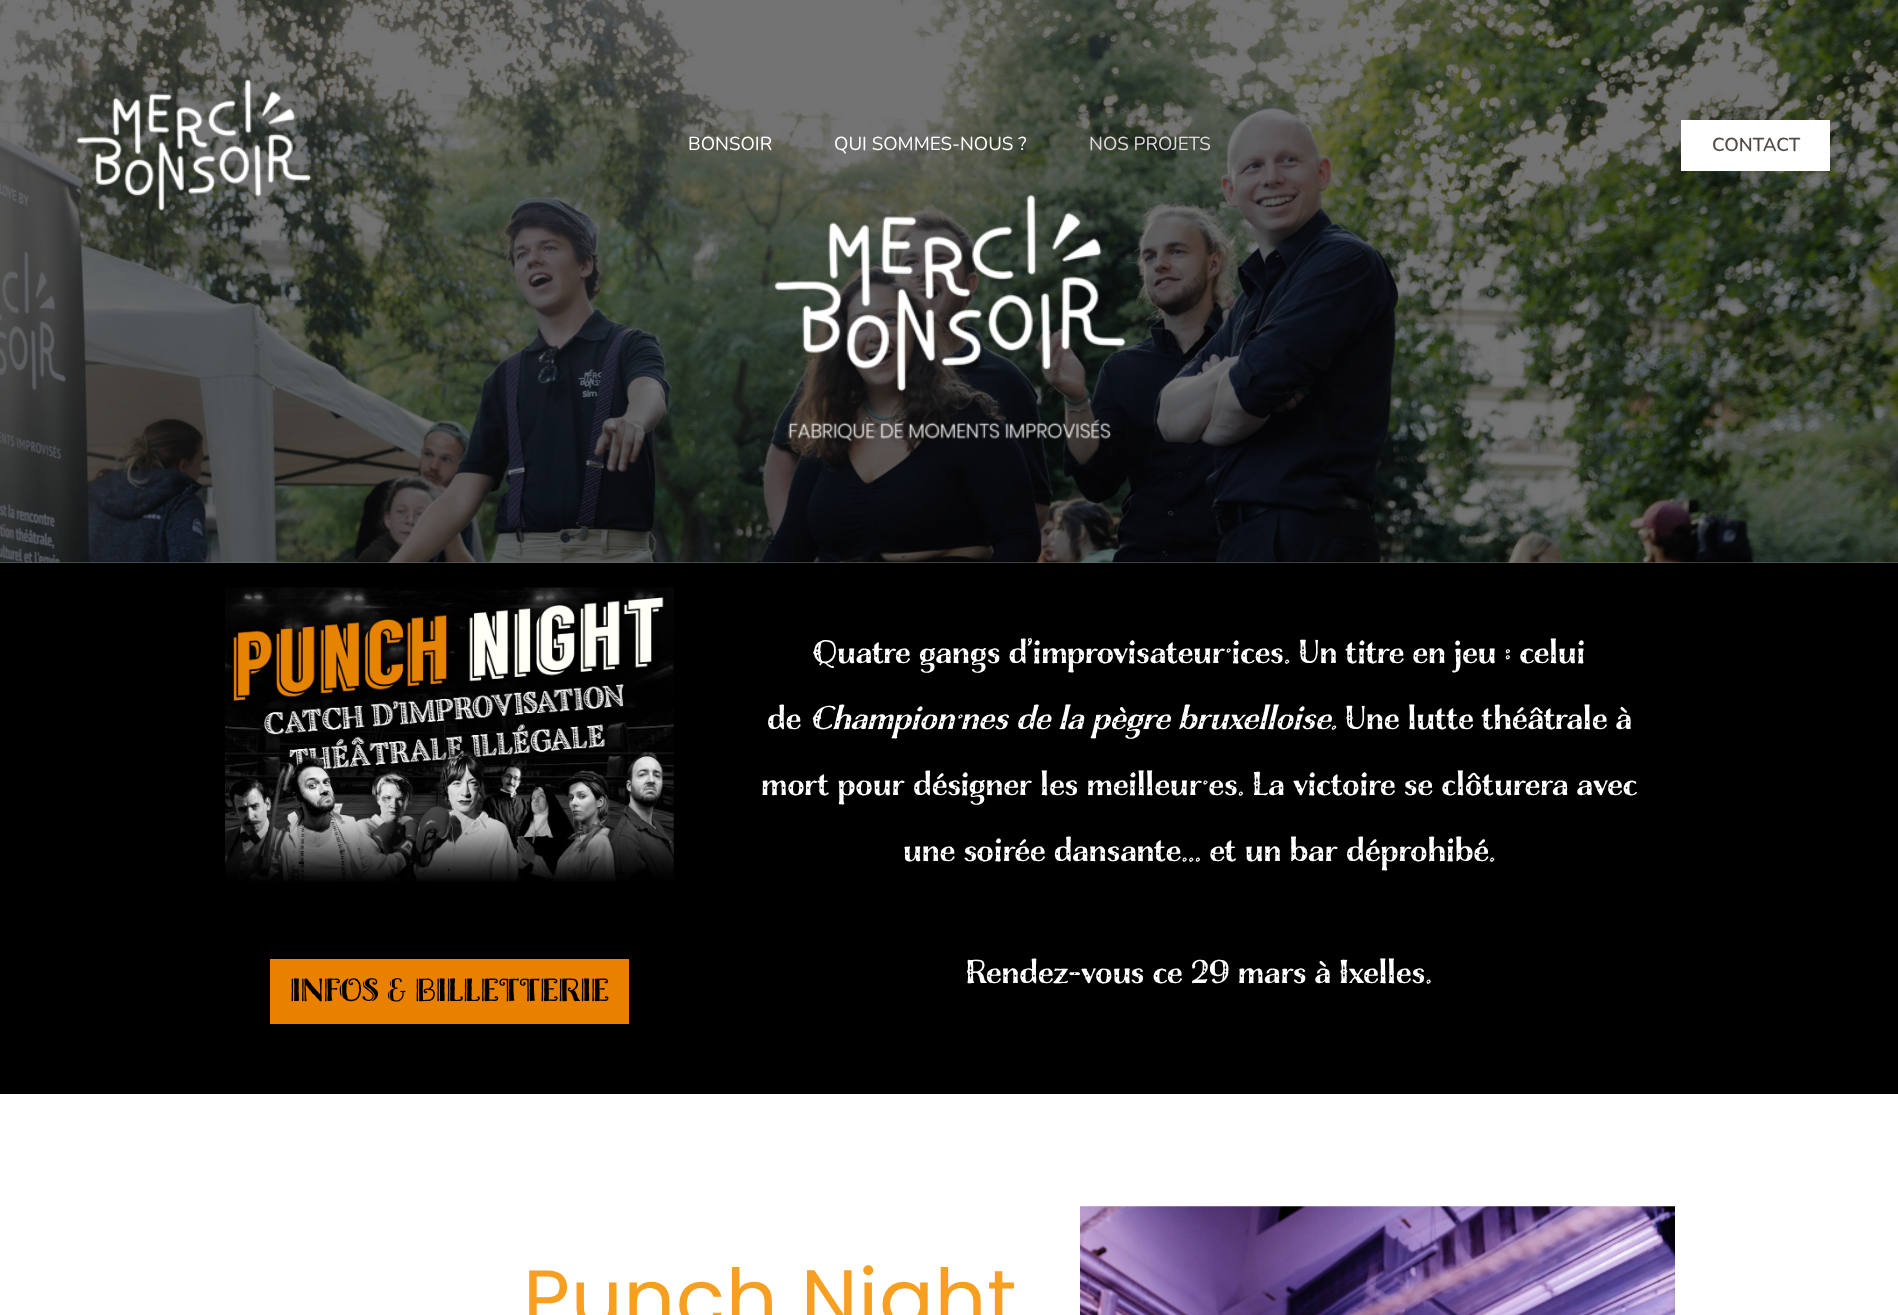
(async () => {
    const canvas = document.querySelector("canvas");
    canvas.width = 1898;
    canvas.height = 1315;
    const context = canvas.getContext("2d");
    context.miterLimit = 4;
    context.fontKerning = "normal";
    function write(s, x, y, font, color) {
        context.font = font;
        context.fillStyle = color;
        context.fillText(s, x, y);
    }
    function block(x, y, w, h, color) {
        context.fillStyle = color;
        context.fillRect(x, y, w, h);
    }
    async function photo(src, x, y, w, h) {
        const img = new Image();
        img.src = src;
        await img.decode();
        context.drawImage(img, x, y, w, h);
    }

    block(0, 0, 1898, 1315, "rgb(255, 255, 255)");
    block(0, 562, 1898, 1, "rgb(115, 115, 115)");
    await photo("media/2.png", 0, 0, 1898, 563);
    await photo("media/1.png", 76, 79, 236, 132);
    write("BONSOIR", 688, 150, "18.75px Nunito", "rgb(255, 255, 255)");
    write("QUI SOMMES-NOUS ?", 834, 150, "18.75px Nunito", "rgb(255, 255, 255)");
    write("NOS PROJETS", 1089, 150, "18.75px Nunito", "rgb(224, 216, 222)");
    block(1681, 120, 149, 51, "rgb(255, 255, 255)");
    write("CONTACT", 1712, 151, "600 18.75px Nunito", "rgb(83, 74, 69)");
    await photo("media/3.png", 774, 194, 352, 248);
    block(0, 563, 1898, 531, "rgb(0, 0, 0)");
    write("Quatre gangs d’improvisateur·ices. Un titre en jeu : celui", 813, 663, "35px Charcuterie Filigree", "rgb(255, 255, 255)");
    write("de", 767, 729, "35px Charcuterie Filigree", "rgb(255, 255, 255)");
    write("Champion·nes de la pègre bruxelloise.", 810, 729, "italic 35px Charcuterie Filigree", "rgb(255, 255, 255)");
    write("Une lutte théâtrale à", 1345, 729, "35px Charcuterie Filigree", "rgb(255, 255, 255)");
    write("mort pour désigner les meilleur·es. La victoire se clôturera avec", 761, 795, "35px Charcuterie Filigree", "rgb(255, 255, 255)");
    write("une soirée dansante… et un bar déprohibé.", 903, 861, "35px Charcuterie Filigree", "rgb(255, 255, 255)");
    write("Rendez-vous ce 29 mars à Ixelles.", 966, 983, "35px Charcuterie Filigree", "rgb(255, 255, 255)");
    await photo("media/4.png", 225, 587, 449, 295);
    block(270, 959, 359, 65, "rgb(233, 128, 0)");
    write("INFOS & BILLETTERIE", 290, 1001, "30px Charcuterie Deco", "rgb(0, 0, 0)");
    context.letterSpacing = "0.6px";
    write("Punch Night", 523, 1327, "81.25px Poppins", "rgb(246, 159, 33)");
    await photo("media/5.png", 1080, 1206, 595, 109);
})();
